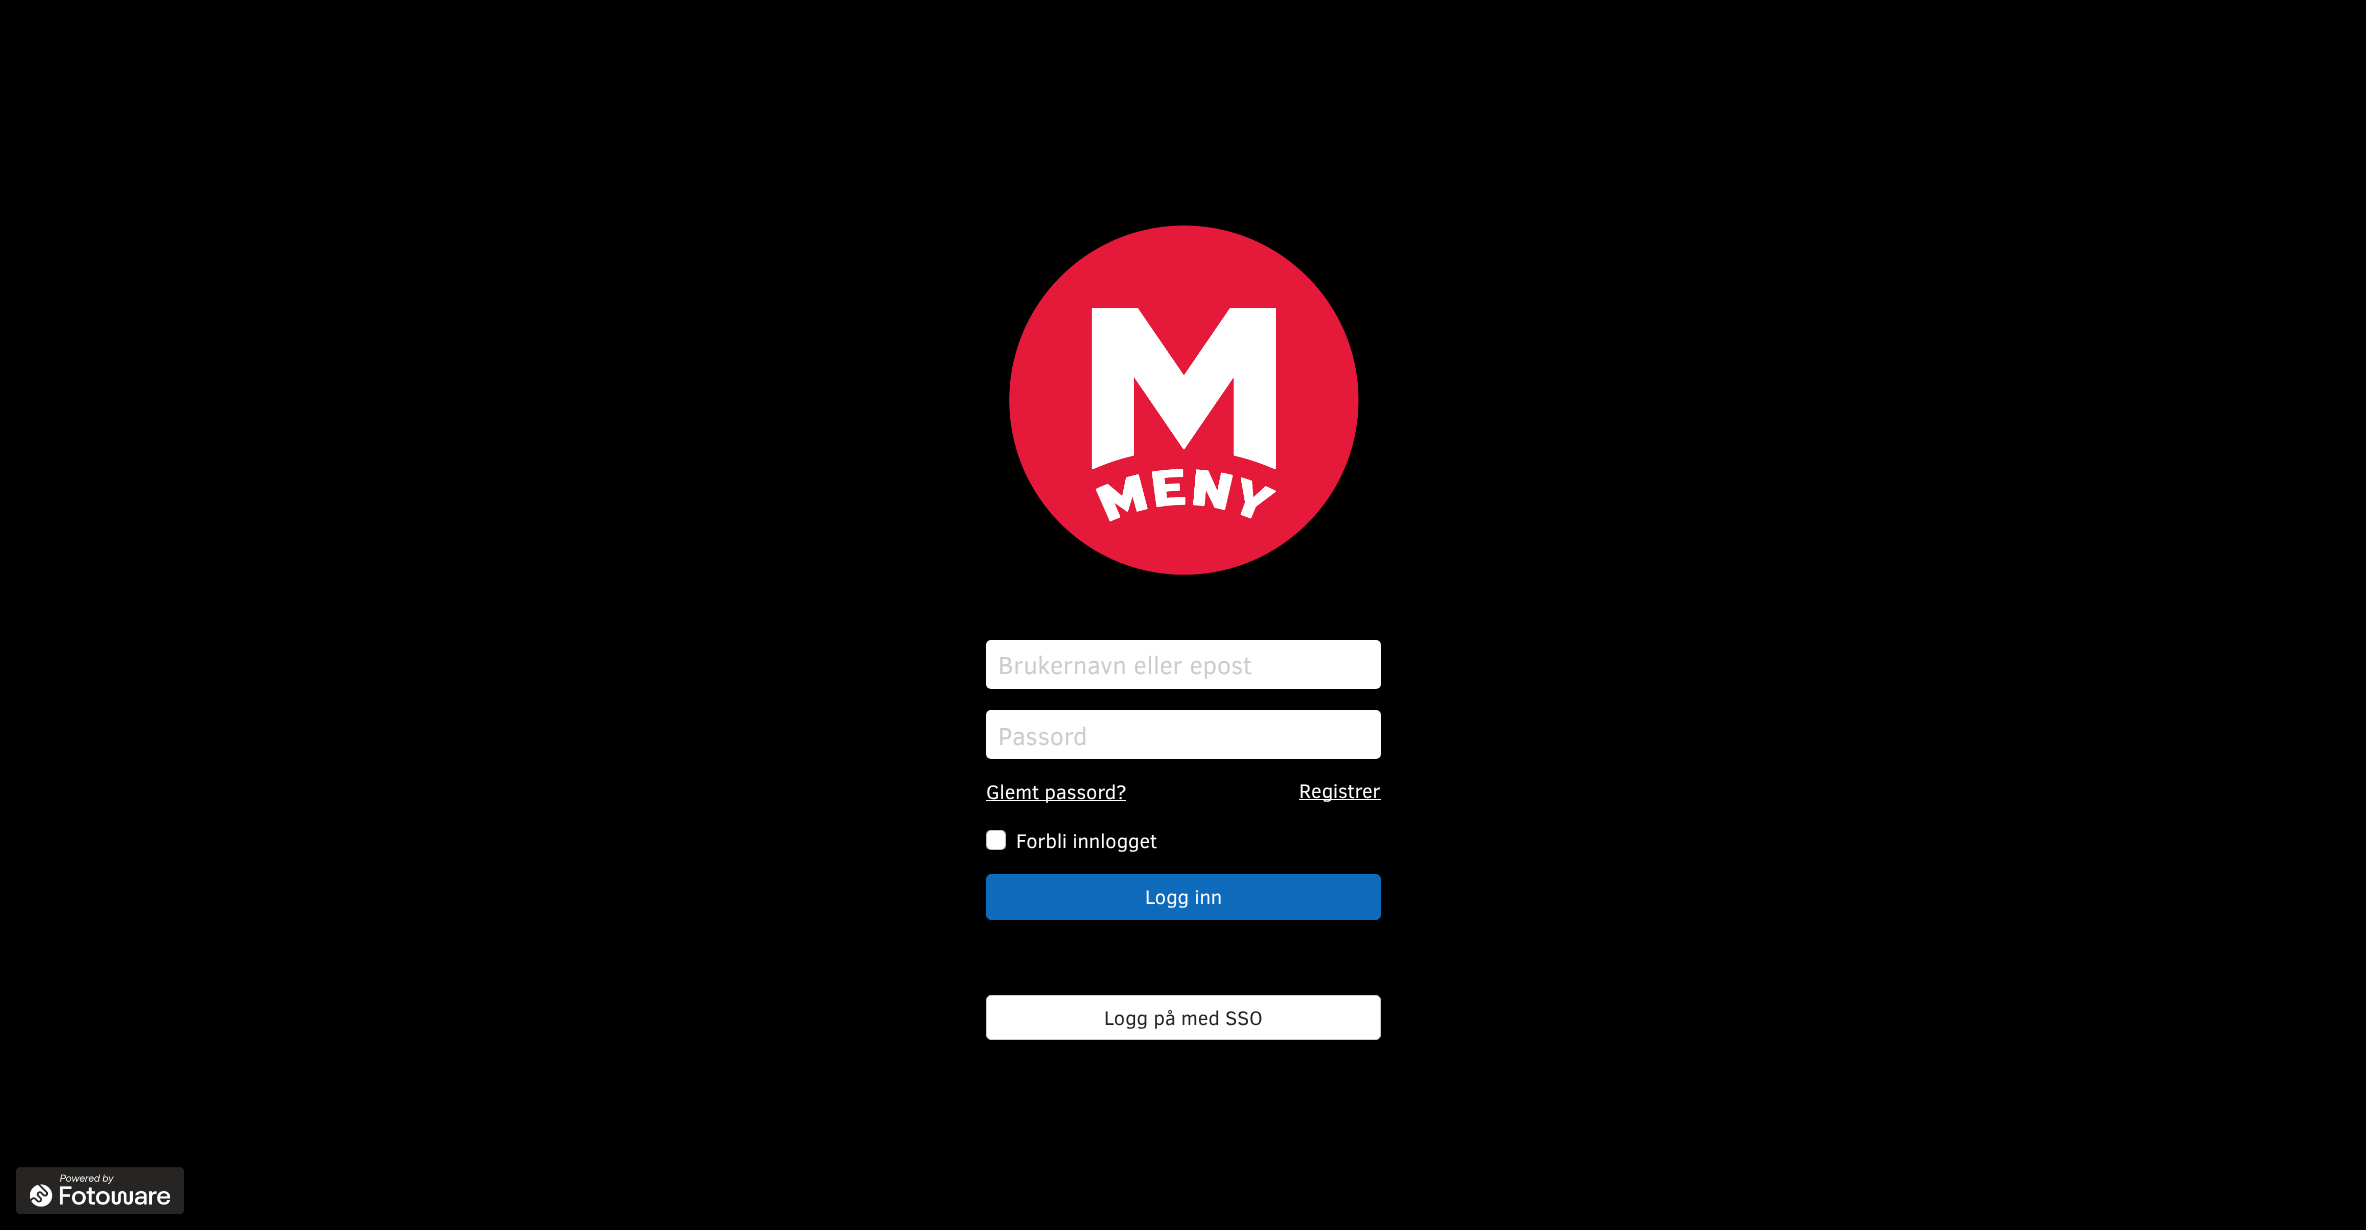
(async () => {
    const canvas = document.querySelector("canvas");
    canvas.width = 2366;
    canvas.height = 1230;
    const context = canvas.getContext("2d");
    context.miterLimit = 4;
    context.fontKerning = "normal";
    function write(s, x, y, font, color) {
        context.font = font;
        context.fillStyle = color;
        context.fillText(s, x, y);
    }
    function block(x, y, w, h, color) {
        context.fillStyle = color;
        context.fillRect(x, y, w, h);
    }
    function card(x, y, w, h, r, color) {
        context.fillStyle = color;
        context.beginPath();
        context.roundRect(x, y, w, h, r);
        context.fill();
    }
    async function photo(src, x, y, w, h) {
        const img = new Image();
        img.src = src;
        await img.decode();
        context.drawImage(img, x, y, w, h);
    }

    block(0, 0, 2366, 1230, "rgb(0, 0, 0)");
    await photo("media/1.png", 1009, 225, 350, 350);
    card(986, 640, 395, 49, 5, "rgb(255, 255, 255)");
    write("Brukernavn eller epost", 998, 674, "25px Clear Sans", "rgb(204, 204, 204)");
    card(986, 710, 395, 49, 5, "rgb(255, 255, 255)");
    write("Passord", 998, 745, "25px Clear Sans", "rgb(204, 204, 204)");
    block(986, 800, 140, 1, "rgb(255, 255, 255)");
    write("Glemt passord?", 986, 799, "20px Clear Sans", "rgb(255, 255, 255)");
    block(1299, 799, 82, 1, "rgb(255, 255, 255)");
    write("Registrer", 1299, 798, "20px Clear Sans", "rgb(255, 255, 255)");
    card(986, 830, 20, 20, 5, "rgb(255, 255, 255)");
    context.beginPath();
    context.roundRect(986.5, 830.5, 19, 19, 4.5);
    context.strokeStyle = "rgba(0, 0, 0, 0.25)";
    context.stroke();
    write("Forbli innlogget", 1016, 848, "20px Clear Sans", "rgb(255, 255, 255)");
    context.fillStyle = "rgb(14, 106, 186)";
    context.beginPath();
    context.roundRect(986.5, 874.5, 394, 45, 4.5);
    context.fill();
    context.strokeStyle = "rgb(14, 106, 186)";
    context.stroke();
    write("Logg inn", 1145, 904, "20px Clear Sans", "rgb(255, 255, 255)");
    context.beginPath();
    context.roundRect(986.5, 995.5, 394, 44, 4.5);
    context.fill();
    context.strokeStyle = "rgb(204, 204, 204)";
    context.stroke();
    write("Logg på med SSO", 1104, 1025, "20px Clear Sans", "rgb(33, 37, 41)");
    await photo("media/2.png", 16, 1167, 168, 47);
})();
